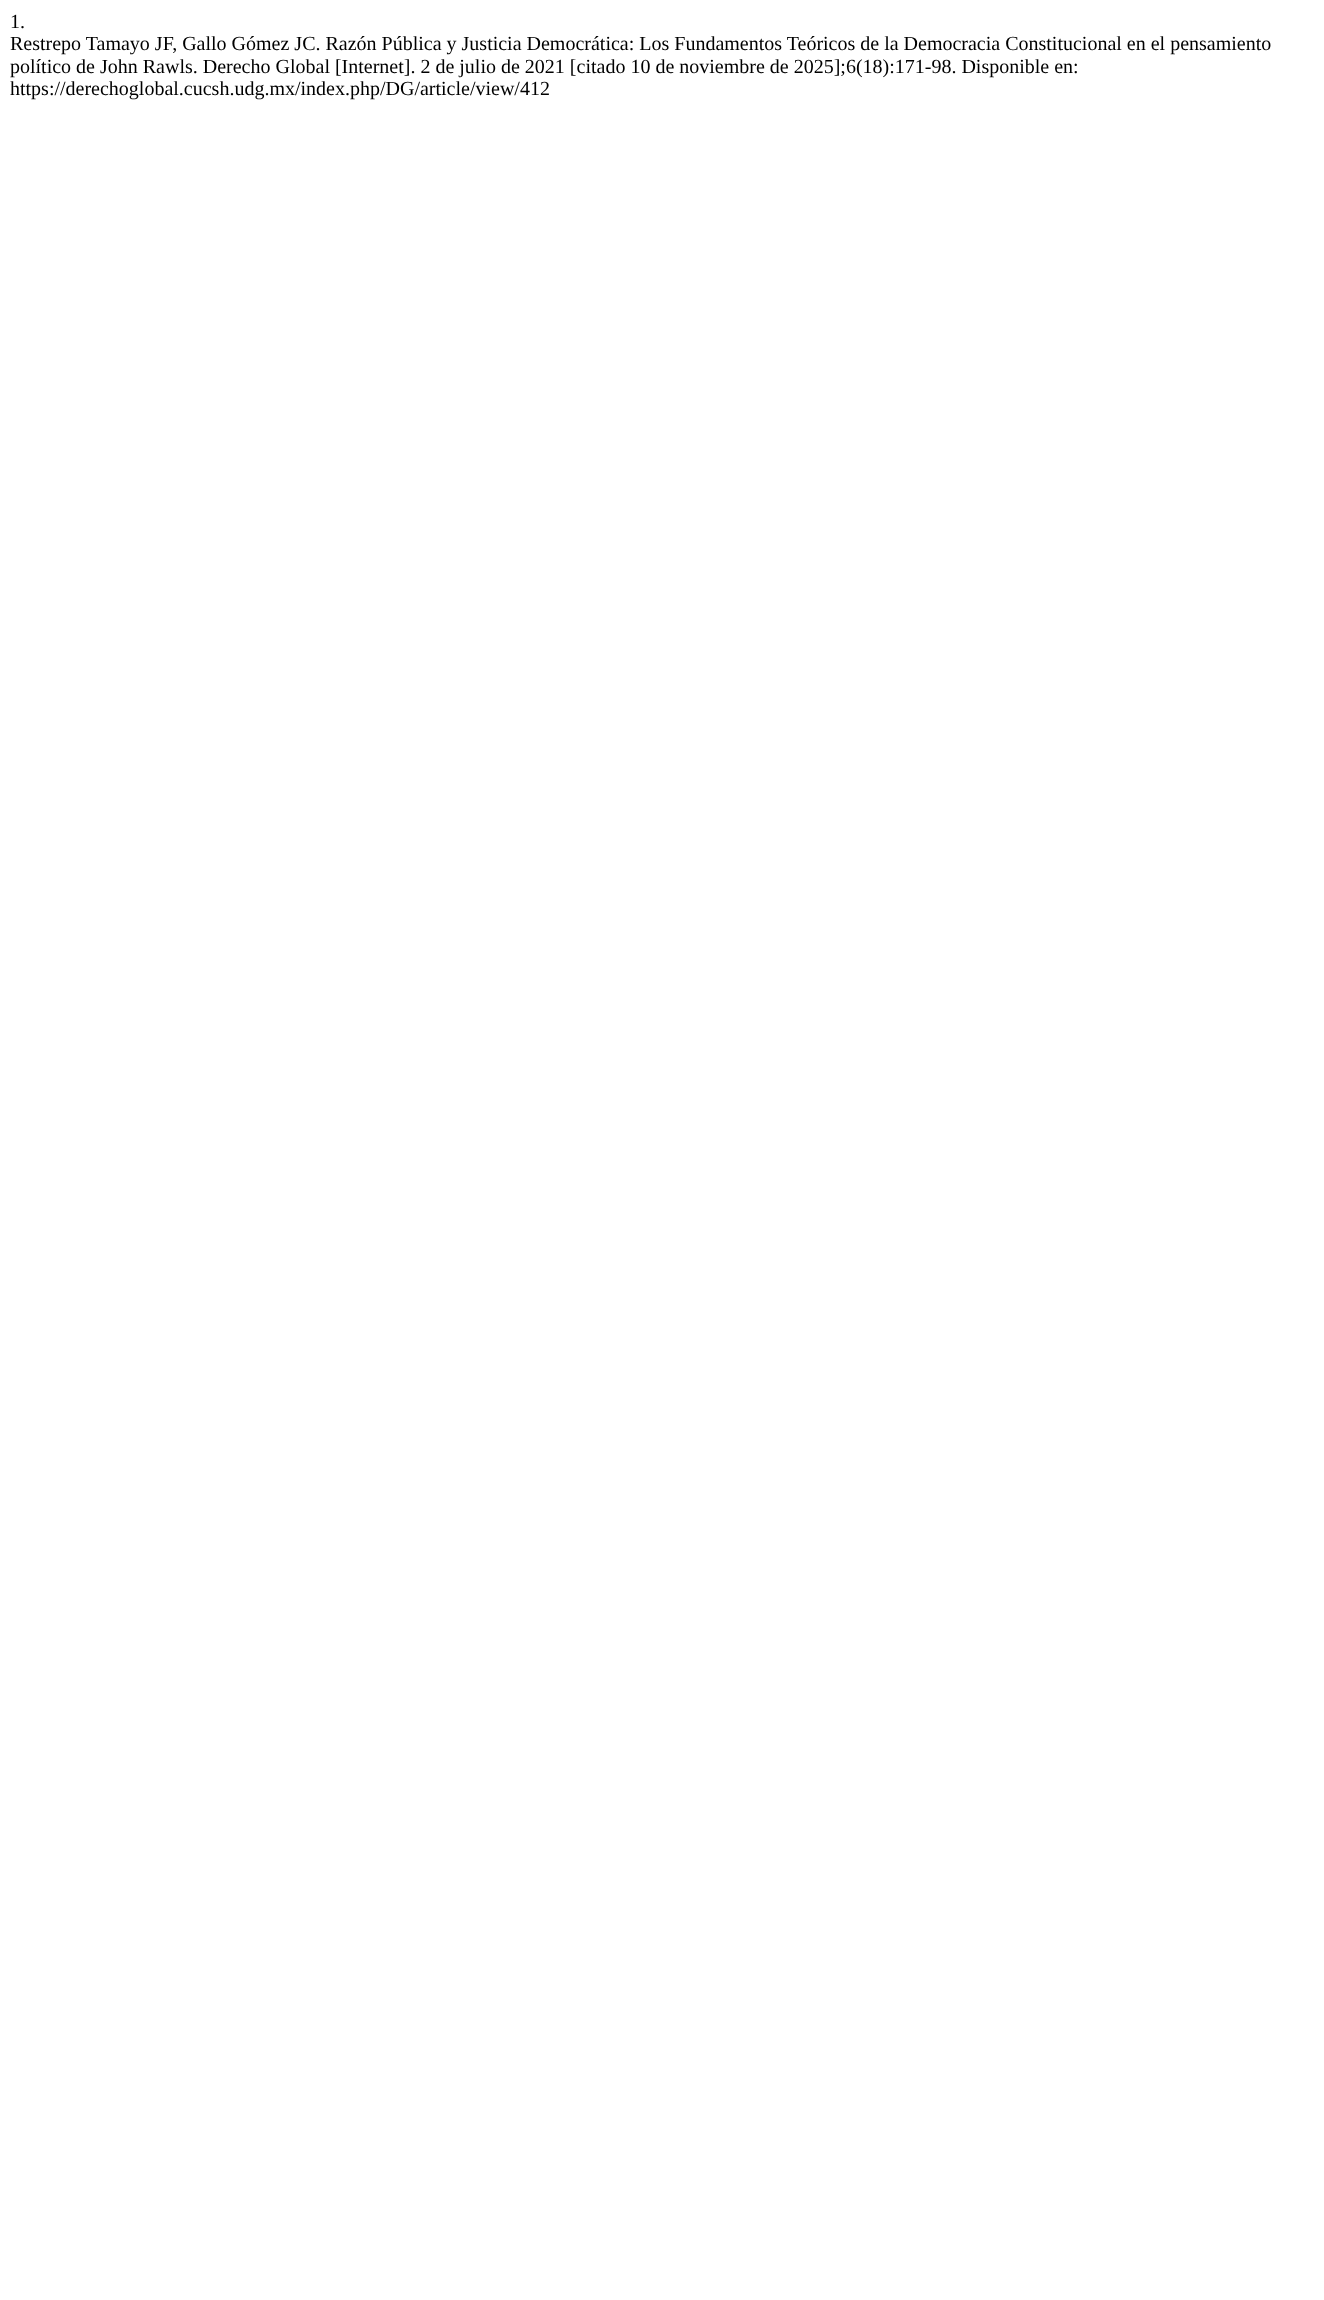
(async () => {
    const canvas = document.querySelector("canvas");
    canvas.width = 1324;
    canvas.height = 2300;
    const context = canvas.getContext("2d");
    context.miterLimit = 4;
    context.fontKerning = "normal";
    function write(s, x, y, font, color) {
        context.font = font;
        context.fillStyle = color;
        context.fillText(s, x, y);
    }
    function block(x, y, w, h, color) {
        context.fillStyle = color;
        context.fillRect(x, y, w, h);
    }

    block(0, 0, 1324, 2300, "rgb(255, 255, 255)");
    write("1.", 10, 28, "20px Liberation Serif", "rgb(0, 0, 0)");
    write("Restrepo Tamayo JF, Gallo Gómez JC. Razón Pública y Justicia Democrática: Los Fundamentos Teóricos de la Democracia Constitucional en el pensamiento", 10, 50, "20px Liberation Serif", "rgb(0, 0, 0)");
    write("político de John Rawls. Derecho Global [Internet]. 2 de julio de 2021 [citado 10 de noviembre de 2025];6(18):171-98. Disponible en:", 10, 73, "20px Liberation Serif", "rgb(0, 0, 0)");
    write("https://derechoglobal.cucsh.udg.mx/index.php/DG/article/view/412", 10, 95, "20px Liberation Serif", "rgb(0, 0, 0)");
})();
